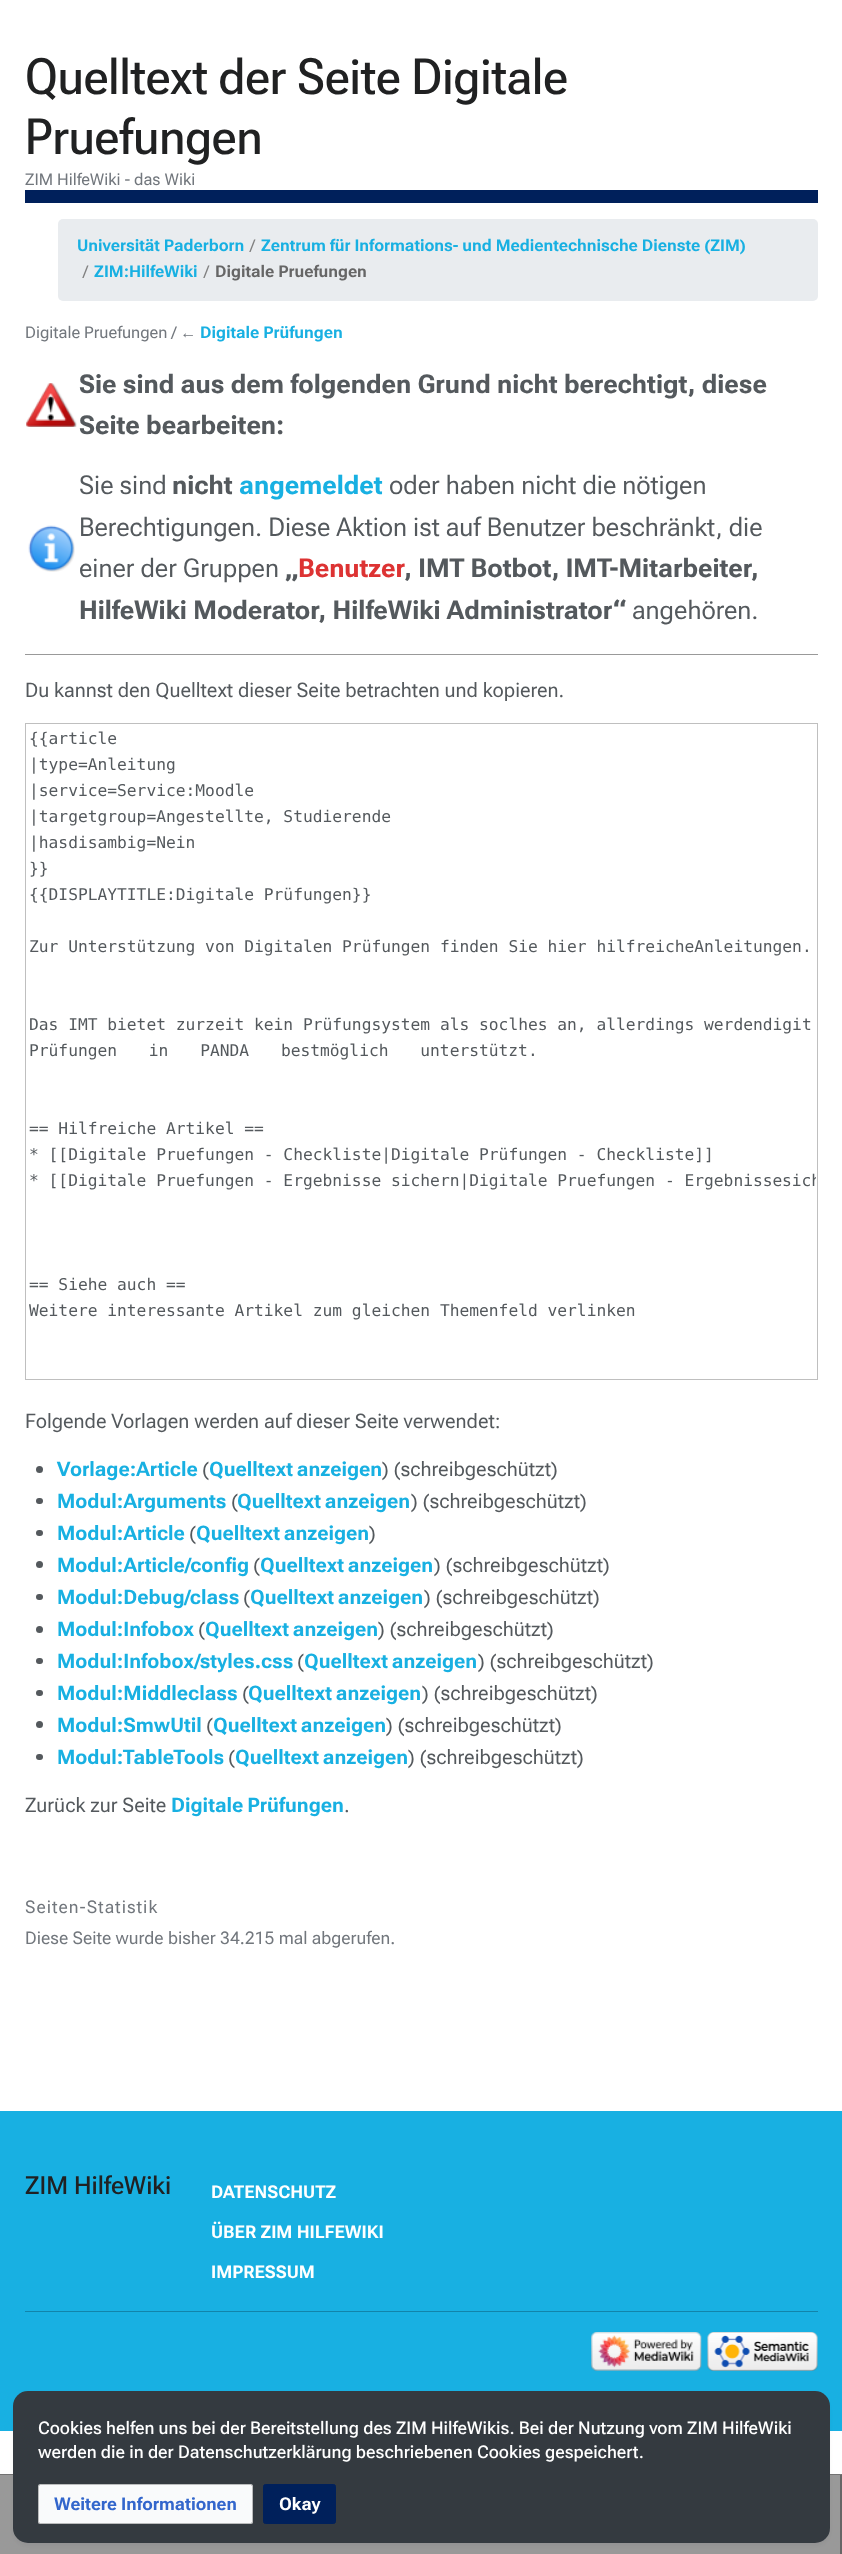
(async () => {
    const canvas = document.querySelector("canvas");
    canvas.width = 842;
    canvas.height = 2554;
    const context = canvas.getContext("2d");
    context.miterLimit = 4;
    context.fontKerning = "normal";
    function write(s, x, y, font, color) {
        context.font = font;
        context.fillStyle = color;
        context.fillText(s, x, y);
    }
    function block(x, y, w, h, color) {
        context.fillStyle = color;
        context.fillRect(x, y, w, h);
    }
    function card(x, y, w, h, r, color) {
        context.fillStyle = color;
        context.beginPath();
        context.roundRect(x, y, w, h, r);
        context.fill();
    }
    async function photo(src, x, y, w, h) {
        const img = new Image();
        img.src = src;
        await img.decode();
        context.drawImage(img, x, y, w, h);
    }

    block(0, 0, 842, 2554, "rgb(255, 255, 255)");
    block(25, 190, 793, 13, "rgb(0, 32, 91)");
    write("Quelltext der Seite Digitale", 25, 94, "500 50px 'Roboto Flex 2'", "rgb(32, 33, 34)");
    write("Pruefungen", 25, 154, "500 50px 'Roboto Flex 2'", "rgb(32, 33, 34)");
    write("ZIM HilfeWiki - das Wiki", 25, 185, "16.25px Roboto Flex", "rgb(114, 119, 125)");
    card(58, 219, 760, 82, 5, "rgb(233, 236, 239)");
    write("Universität Paderborn", 77, 251, "bold 16.25px 'Roboto Flex 2'", "rgb(24, 176, 226)");
    write("/", 250, 251, "16.25px Roboto Flex", "rgb(128, 128, 128)");
    write("Zentrum für Informations- und Medientechnische Dienste (ZIM)", 261, 251, "bold 16.25px 'Roboto Flex 2'", "rgb(24, 176, 226)");
    write("/", 83, 277, "16.25px Roboto Flex", "rgb(128, 128, 128)");
    write("ZIM:HilfeWiki", 94, 277, "bold 16.25px 'Roboto Flex 2'", "rgb(24, 176, 226)");
    write("/", 204, 277, "16.25px Roboto Flex", "rgb(128, 128, 128)");
    write("Digitale Pruefungen", 215, 277, "bold 16.25px 'Roboto Flex 2'", "rgb(102, 102, 102)");
    write("Digitale Pruefungen /", 25, 338, "16.25px Roboto Flex", "rgb(114, 119, 125)");
    write("←", 180, 338, "16.25px Liberation Sans", "rgb(114, 119, 125)");
    write("Digitale Prüfungen", 200, 338, "bold 16.25px 'Roboto Flex 2'", "rgb(24, 176, 226)");
    await photo("media/1.png", 26, 383, 51, 44);
    write("Sie sind aus dem folgenden Grund nicht berechtigt, diese", 79, 393, "bold 26px 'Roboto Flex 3'", "rgb(84, 89, 93)");
    write("Seite bearbeiten:", 79, 434, "bold 26px 'Roboto Flex 3'", "rgb(84, 89, 93)");
    await photo("media/2.png", 28, 525, 47, 47);
    write("Sie sind", 79, 494, "26px 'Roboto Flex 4'", "rgb(84, 89, 93)");
    write("nicht", 172, 494, "bold 26px 'Roboto Flex 3'", "rgb(84, 89, 93)");
    write("angemeldet", 239, 494, "bold 26px 'Roboto Flex 3'", "rgb(24, 176, 226)");
    write("oder haben nicht die nötigen", 389, 494, "26px 'Roboto Flex 4'", "rgb(84, 89, 93)");
    write("Berechtigungen. Diese Aktion ist auf Benutzer beschränkt, die", 79, 536, "26px 'Roboto Flex 4'", "rgb(84, 89, 93)");
    write("einer der Gruppen", 79, 577, "26px 'Roboto Flex 4'", "rgb(84, 89, 93)");
    write("„", 285, 577, "bold 26px 'Roboto Flex 3'", "rgb(84, 89, 93)");
    write("Benutzer", 298, 577, "bold 26px 'Roboto Flex 3'", "rgb(221, 51, 51)");
    write(", IMT Botbot, IMT-Mitarbeiter,", 404, 577, "bold 26px 'Roboto Flex 3'", "rgb(84, 89, 93)");
    write("HilfeWiki Moderator, HilfeWiki Administrator“", 79, 619, "bold 26px 'Roboto Flex 3'", "rgb(84, 89, 93)");
    write("angehören.", 632, 619, "26px 'Roboto Flex 4'", "rgb(84, 89, 93)");
    block(25, 654, 793, 1, "rgb(153, 153, 153)");
    write("Du kannst den Quelltext dieser Seite betrachten und kopieren.", 25, 697, "20px 'Roboto Flex 2'", "rgb(84, 89, 93)");
    context.strokeStyle = "rgb(191, 191, 191)";
    context.strokeRect(25.5, 723.5, 792, 656);
    write("{{article", 29, 744, "16.25px DejaVu Sans Mono", "rgb(84, 89, 93)");
    write("|type=Anleitung", 29, 770, "16.25px DejaVu Sans Mono", "rgb(84, 89, 93)");
    write("|service=Service:Moodle", 29, 796, "16.25px DejaVu Sans Mono", "rgb(84, 89, 93)");
    write("|targetgroup=Angestellte, Studierende", 29, 822, "16.25px DejaVu Sans Mono", "rgb(84, 89, 93)");
    write("|hasdisambig=Nein", 29, 848, "16.25px DejaVu Sans Mono", "rgb(84, 89, 93)");
    write("}}", 29, 874, "16.25px DejaVu Sans Mono", "rgb(84, 89, 93)");
    write("{{DISPLAYTITLE:Digitale Prüfungen}}", 29, 900, "16.25px DejaVu Sans Mono", "rgb(84, 89, 93)");
    write("Zur Unterstützung von Digitalen Prüfungen finden Sie hier hilfreicheAnleitungen.", 29, 952, "16.25px DejaVu Sans Mono", "rgb(84, 89, 93)");
    write("Das IMT bietet zurzeit kein Prüfungsystem als soclhes an, allerdings werdendigit", 29, 1030, "16.25px DejaVu Sans Mono", "rgb(84, 89, 93)");
    context.wordSpacing = "22px";
    write("Prüfungen in PANDA bestmöglich unterstützt.", 29, 1056, "16.25px DejaVu Sans Mono", "rgb(84, 89, 93)");
    context.wordSpacing = "0px";
    write("== Hilfreiche Artikel ==", 29, 1134, "16.25px DejaVu Sans Mono", "rgb(84, 89, 93)");
    write("* [[Digitale Pruefungen - Checkliste|Digitale Prüfungen - Checkliste]]", 29, 1160, "16.25px DejaVu Sans Mono", "rgb(84, 89, 93)");
    write("* [[Digitale Pruefungen - Ergebnisse sichern|Digitale Pruefungen - Ergebnisse", 29, 1186, "16.25px DejaVu Sans Mono", "rgb(84, 89, 93)");
    context.save();
    context.beginPath();
    context.rect(26, 724, 790, 655);
    context.clip();
    write("sich", 782, 1186, "16.25px DejaVu Sans Mono", "rgb(84, 89, 93)");
    context.restore();
    write("== Siehe auch ==", 29, 1290, "16.25px DejaVu Sans Mono", "rgb(84, 89, 93)");
    write("Weitere interessante Artikel zum gleichen Themenfeld verlinken", 29, 1316, "16.25px DejaVu Sans Mono", "rgb(84, 89, 93)");
    write("Folgende Vorlagen werden auf dieser Seite verwendet:", 25, 1428, "20px 'Roboto Flex 2'", "rgb(84, 89, 93)");
    context.beginPath();
    context.arc(39.5, 1469.5, 3.5, 0, Math.PI * 2);
    context.fill();
    write("Vorlage:Article", 57, 1476, "bold 20px Roboto Flex", "rgb(24, 176, 226)");
    write("(", 202, 1476, "20px 'Roboto Flex 2'", "rgb(84, 89, 93)");
    context.wordSpacing = "-1px";
    write("Quelltext anzeigen", 209, 1476, "bold 20px Roboto Flex", "rgb(24, 176, 226)");
    context.wordSpacing = "0px";
    write(") (schreibgeschützt)", 382, 1476, "20px 'Roboto Flex 2'", "rgb(84, 89, 93)");
    card(36, 1498, 7, 6, 3, "rgb(84, 89, 93)");
    write("Modul:Arguments", 57, 1508, "bold 20px Roboto Flex", "rgb(24, 176, 226)");
    write("(", 231, 1508, "20px 'Roboto Flex 2'", "rgb(84, 89, 93)");
    context.wordSpacing = "-1px";
    write("Quelltext anzeigen", 237, 1508, "bold 20px Roboto Flex", "rgb(24, 176, 226)");
    context.wordSpacing = "0px";
    write(") (schreibgeschützt)", 411, 1508, "20px 'Roboto Flex 2'", "rgb(84, 89, 93)");
    card(36, 1530, 7, 6, 3, "rgb(84, 89, 93)");
    write("Modul:Article", 57, 1540, "bold 20px Roboto Flex", "rgb(24, 176, 226)");
    write("(", 189, 1540, "20px 'Roboto Flex 2'", "rgb(84, 89, 93)");
    context.wordSpacing = "-1px";
    write("Quelltext anzeigen", 196, 1540, "bold 20px Roboto Flex", "rgb(24, 176, 226)");
    context.wordSpacing = "0px";
    write(")", 369, 1540, "20px 'Roboto Flex 2'", "rgb(84, 89, 93)");
    context.beginPath();
    context.arc(39.5, 1564.5, 3.5, 0, Math.PI * 2);
    context.fill();
    write("Modul:Article/config", 57, 1572, "bold 20px Roboto Flex", "rgb(24, 176, 226)");
    write("(", 253, 1572, "20px 'Roboto Flex 2'", "rgb(84, 89, 93)");
    context.wordSpacing = "-1px";
    write("Quelltext anzeigen", 260, 1572, "bold 20px Roboto Flex", "rgb(24, 176, 226)");
    context.wordSpacing = "0px";
    write(") (schreibgeschützt)", 434, 1572, "20px 'Roboto Flex 2'", "rgb(84, 89, 93)");
    card(36, 1594, 7, 6, 3, "rgb(84, 89, 93)");
    write("Modul:Debug/class", 57, 1604, "bold 20px Roboto Flex", "rgb(24, 176, 226)");
    write("(", 243, 1604, "20px 'Roboto Flex 2'", "rgb(84, 89, 93)");
    context.wordSpacing = "-1px";
    write("Quelltext anzeigen", 250, 1604, "bold 20px Roboto Flex", "rgb(24, 176, 226)");
    context.wordSpacing = "0px";
    write(") (schreibgeschützt)", 424, 1604, "20px 'Roboto Flex 2'", "rgb(84, 89, 93)");
    context.beginPath();
    context.arc(39.5, 1629.5, 3.5, 0, Math.PI * 2);
    context.fill();
    write("Modul:Infobox", 57, 1636, "bold 20px Roboto Flex", "rgb(24, 176, 226)");
    write("(", 198, 1636, "20px 'Roboto Flex 2'", "rgb(84, 89, 93)");
    context.wordSpacing = "-1px";
    write("Quelltext anzeigen", 205, 1636, "bold 20px Roboto Flex", "rgb(24, 176, 226)");
    context.wordSpacing = "0px";
    write(") (schreibgeschützt)", 378, 1636, "20px 'Roboto Flex 2'", "rgb(84, 89, 93)");
    card(36, 1658, 7, 6, 3, "rgb(84, 89, 93)");
    write("Modul:Infobox/styles.css", 57, 1668, "bold 20px Roboto Flex", "rgb(24, 176, 226)");
    write("(", 297, 1668, "20px 'Roboto Flex 2'", "rgb(84, 89, 93)");
    context.wordSpacing = "-1px";
    write("Quelltext anzeigen", 304, 1668, "bold 20px Roboto Flex", "rgb(24, 176, 226)");
    context.wordSpacing = "0px";
    write(") (schreibgeschützt)", 478, 1668, "20px 'Roboto Flex 2'", "rgb(84, 89, 93)");
    card(36, 1690, 7, 6, 3, "rgb(84, 89, 93)");
    write("Modul:Middleclass", 57, 1700, "bold 20px Roboto Flex", "rgb(24, 176, 226)");
    write("(", 242, 1700, "20px 'Roboto Flex 2'", "rgb(84, 89, 93)");
    context.wordSpacing = "-1px";
    write("Quelltext anzeigen", 248, 1700, "bold 20px Roboto Flex", "rgb(24, 176, 226)");
    context.wordSpacing = "0px";
    write(") (schreibgeschützt)", 422, 1700, "20px 'Roboto Flex 2'", "rgb(84, 89, 93)");
    context.beginPath();
    context.arc(39.5, 1724.5, 3.5, 0, Math.PI * 2);
    context.fill();
    write("Modul:SmwUtil", 57, 1732, "bold 20px Roboto Flex", "rgb(24, 176, 226)");
    write("(", 206, 1732, "20px 'Roboto Flex 2'", "rgb(84, 89, 93)");
    context.wordSpacing = "-1px";
    write("Quelltext anzeigen", 213, 1732, "bold 20px Roboto Flex", "rgb(24, 176, 226)");
    context.wordSpacing = "0px";
    write(") (schreibgeschützt)", 386, 1732, "20px 'Roboto Flex 2'", "rgb(84, 89, 93)");
    card(36, 1754, 7, 6, 3, "rgb(84, 89, 93)");
    write("Modul:TableTools", 57, 1764, "bold 20px Roboto Flex", "rgb(24, 176, 226)");
    write("(", 228, 1764, "20px 'Roboto Flex 2'", "rgb(84, 89, 93)");
    context.wordSpacing = "-1px";
    write("Quelltext anzeigen", 235, 1764, "bold 20px Roboto Flex", "rgb(24, 176, 226)");
    context.wordSpacing = "0px";
    write(") (schreibgeschützt)", 408, 1764, "20px 'Roboto Flex 2'", "rgb(84, 89, 93)");
    write("Zurück zur Seite", 25, 1812, "20px 'Roboto Flex 2'", "rgb(84, 89, 93)");
    context.wordSpacing = "-1px";
    write("Digitale Prüfungen", 171, 1812, "bold 20px Roboto Flex", "rgb(24, 176, 226)");
    context.wordSpacing = "0px";
    write(".", 344, 1812, "20px 'Roboto Flex 2'", "rgb(84, 89, 93)");
    context.letterSpacing = "1px";
    write("Seiten-Statistik", 25, 1913, "17.5px 'Roboto Flex 3'", "rgb(114, 119, 125)");
    context.letterSpacing = "0px";
    write("Diese Seite wurde bisher 34.215 mal abgerufen.", 25, 1944, "17.5px 'Roboto Flex 3'", "rgb(114, 119, 125)");
    block(0, 2111, 842, 320, "rgb(24, 176, 226)");
    write("ZIM HilfeWiki", 25, 2194, "500 25px Roboto Flex", "rgb(32, 33, 34)");
    write("DATENSCHUTZ", 211, 2198, "bold 17.5px Roboto Flex", "rgb(255, 255, 255)");
    write("ÜBER ZIM HILFEWIKI", 211, 2238, "bold 17.5px Roboto Flex", "rgb(255, 255, 255)");
    write("IMPRESSUM", 211, 2278, "bold 17.5px Roboto Flex", "rgb(255, 255, 255)");
    block(25, 2311, 793, 1, "rgb(18, 132, 170)");
    await photo("media/3.png", 591, 2332, 111, 39);
    await photo("media/4.png", 707, 2332, 111, 39);
    block(0, 2474, 842, 80, "rgb(153, 153, 153)");
    context.fillStyle = "rgb(115, 115, 115)";
    context.beginPath();
    context.moveTo(0, 2474);
    context.lineTo(842, 2474);
    context.lineTo(840, 2475);
    context.lineTo(0, 2475);
    context.closePath();
    context.fill();
    context.fillStyle = "rgba(46, 49, 56, 0.05)";
    context.filter = "blur(1.5px)";
    context.beginPath();
    context.roundRect(13, 2395, 817, 151, 15);
    context.fill();
    context.filter = "none";
    card(13, 2391, 817, 152, 15, "rgb(52, 58, 64)");
    write("Cookies helfen uns bei der Bereitstellung des ZIM HilfeWikis. Bei der Nutzung vom ZIM HilfeWiki", 38, 2434, "500 17.5px 'Roboto Flex 3'", "rgb(255, 255, 255)");
    write("werden die in der Datenschutzerklärung beschriebenen Cookies gespeichert.", 38, 2458, "500 17.5px 'Roboto Flex 3'", "rgb(255, 255, 255)");
    card(38, 2484, 215, 40, 2.5, "rgb(249, 250, 251)");
    context.beginPath();
    context.roundRect(38.5, 2484.5, 214, 39, 2);
    context.strokeStyle = "rgba(0, 0, 0, 0.25)";
    context.stroke();
    write("Weitere Informationen", 54, 2510, "bold 17.5px Roboto Flex", "rgb(51, 102, 204)");
    context.fillStyle = "rgb(0, 32, 91)";
    context.beginPath();
    context.roundRect(263.5, 2484.5, 72, 39, 2);
    context.fill();
    context.strokeStyle = "rgb(0, 32, 91)";
    context.stroke();
    write("Okay", 279, 2510, "bold 17.5px Roboto Flex", "rgb(255, 255, 255)");
    context.fillStyle = "rgb(102, 102, 102)";
    context.beginPath();
    context.moveTo(842, 2474);
    context.lineTo(842, 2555);
    context.lineTo(840, 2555);
    context.lineTo(840, 2475);
    context.closePath();
    context.fill();
})();
